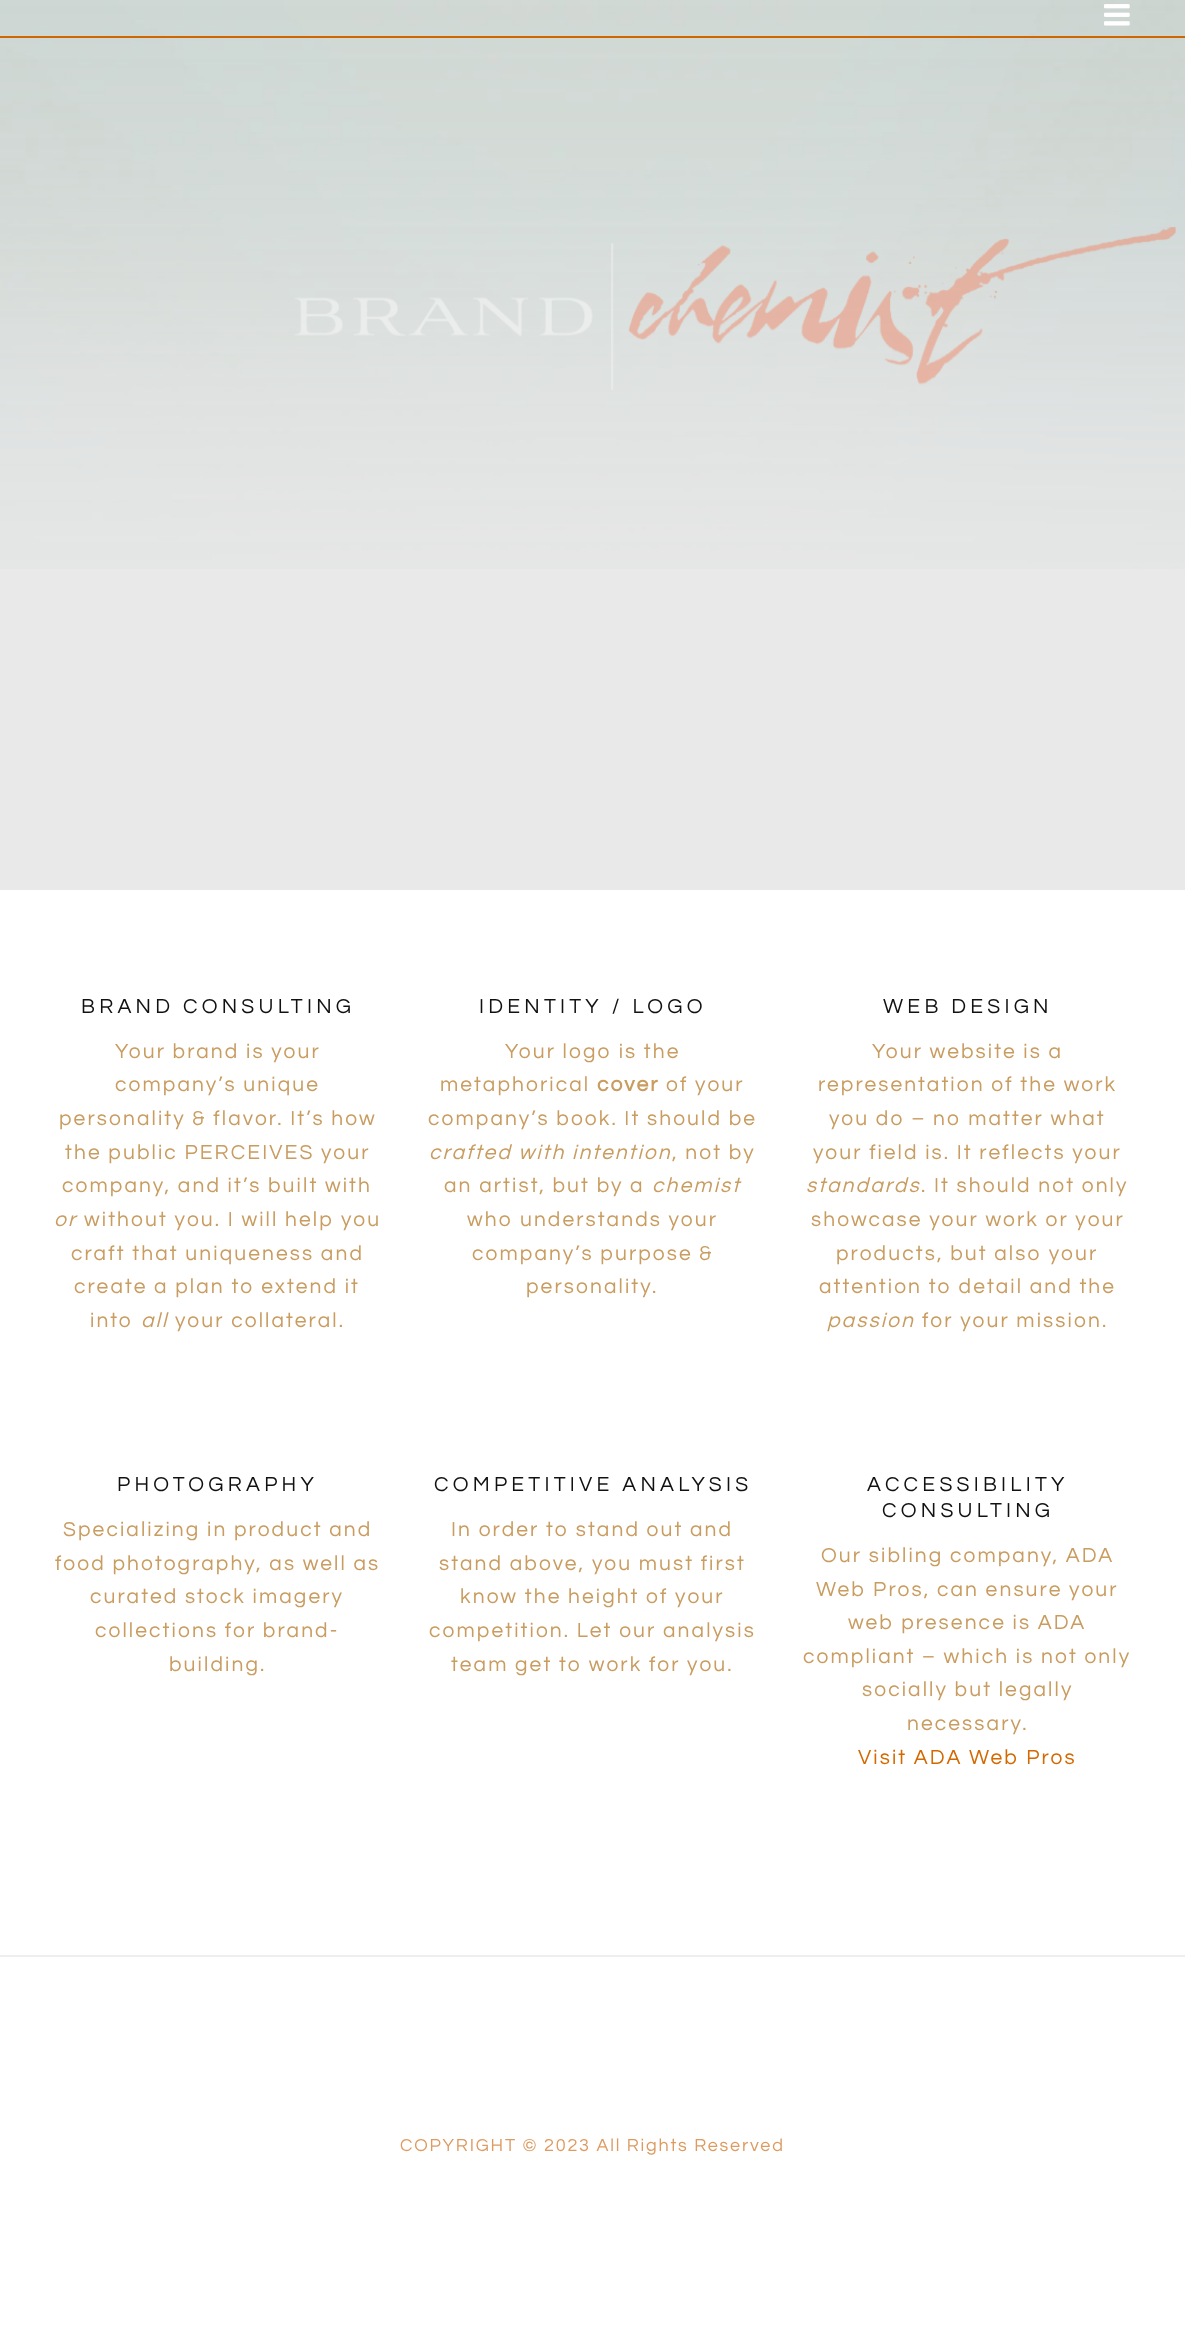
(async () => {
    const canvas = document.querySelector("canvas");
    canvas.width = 1185;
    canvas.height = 2333;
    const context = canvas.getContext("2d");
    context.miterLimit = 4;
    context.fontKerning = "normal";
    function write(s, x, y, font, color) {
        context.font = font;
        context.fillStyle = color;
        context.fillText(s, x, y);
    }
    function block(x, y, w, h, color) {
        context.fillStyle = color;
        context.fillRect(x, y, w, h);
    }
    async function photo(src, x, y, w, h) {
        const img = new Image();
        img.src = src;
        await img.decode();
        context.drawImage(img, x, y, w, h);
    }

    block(0, 0, 1185, 2333, "rgb(255, 255, 255)");
    block(0, 0, 1185, 890, "rgb(233, 233, 233)");
    await photo("media/2.png", 0, 0, 1185, 569);
    block(0, 36, 1185, 2, "rgb(206, 103, 0)");
    await photo("media/1.png", 1104, 4, 26, 22);
    await photo("media/3.png", 294, 227, 882, 163);
    context.letterSpacing = "4.25px";
    write("BRAND CONSULTING", 81, 1013, "21px Questrial", "rgb(17, 17, 17)");
    context.letterSpacing = "2.1px";
    write("Your brand is your", 115, 1058, "21px Questrial", "rgb(201, 156, 96)");
    write("company’s unique", 115, 1091, "21px Questrial", "rgb(201, 156, 96)");
    write("personality & flavor. It’s how", 59, 1125, "21px Questrial", "rgb(201, 156, 96)");
    write("the public PERCEIVES your", 65, 1159, "21px Questrial", "rgb(201, 156, 96)");
    write("company, and it’s built with", 62, 1192, "21px Questrial", "rgb(201, 156, 96)");
    write("or", 54, 1226, "italic 21px Questrial", "rgb(201, 156, 96)");
    write("without you. I will help you", 84, 1226, "21px Questrial", "rgb(201, 156, 96)");
    write("craft that uniqueness and", 71, 1260, "21px Questrial", "rgb(201, 156, 96)");
    write("create a plan to extend it", 74, 1293, "21px Questrial", "rgb(201, 156, 96)");
    write("into", 90, 1327, "21px Questrial", "rgb(201, 156, 96)");
    write("all", 141, 1327, "italic 21px Questrial", "rgb(201, 156, 96)");
    write("your collateral.", 175, 1327, "21px Questrial", "rgb(201, 156, 96)");
    context.letterSpacing = "4.25px";
    write("IDENTITY / LOGO", 479, 1013, "21px Questrial", "rgb(17, 17, 17)");
    context.letterSpacing = "2.1px";
    write("Your logo is the", 505, 1058, "21px Questrial", "rgb(201, 156, 96)");
    write("metaphorical", 440, 1091, "21px Questrial", "rgb(201, 156, 96)");
    write("cover", 597, 1091, "bold 21px Questrial", "rgb(201, 156, 96)");
    write("of your", 666, 1091, "21px Questrial", "rgb(201, 156, 96)");
    write("company’s book. It should be", 428, 1125, "21px Questrial", "rgb(201, 156, 96)");
    write("crafted with intention", 429, 1159, "italic 21px Questrial", "rgb(201, 156, 96)");
    write(", not by", 672, 1159, "21px Questrial", "rgb(201, 156, 96)");
    write("an artist, but by a", 444, 1192, "21px Questrial", "rgb(201, 156, 96)");
    write("chemist", 652, 1192, "italic 21px Questrial", "rgb(201, 156, 96)");
    write("who understands your", 467, 1226, "21px Questrial", "rgb(201, 156, 96)");
    write("company’s purpose &", 472, 1260, "21px Questrial", "rgb(201, 156, 96)");
    write("personality.", 526, 1293, "21px Questrial", "rgb(201, 156, 96)");
    context.letterSpacing = "4.25px";
    write("WEB DESIGN", 883, 1013, "21px Questrial", "rgb(17, 17, 17)");
    context.letterSpacing = "2.1px";
    write("Your website is a", 872, 1058, "21px Questrial", "rgb(201, 156, 96)");
    write("representation of the work", 818, 1091, "21px Questrial", "rgb(201, 156, 96)");
    write("you do – no matter what", 829, 1125, "21px Questrial", "rgb(201, 156, 96)");
    write("your field is. It reflects your", 813, 1159, "21px Questrial", "rgb(201, 156, 96)");
    write("standards", 806, 1192, "italic 21px Questrial", "rgb(201, 156, 96)");
    write(". It should not only", 921, 1192, "21px Questrial", "rgb(201, 156, 96)");
    write("showcase your work or your", 811, 1226, "21px Questrial", "rgb(201, 156, 96)");
    write("products, but also your", 836, 1260, "21px Questrial", "rgb(201, 156, 96)");
    write("attention to detail and the", 819, 1293, "21px Questrial", "rgb(201, 156, 96)");
    write("passion", 827, 1327, "italic 21px Questrial", "rgb(201, 156, 96)");
    write("for your mission.", 922, 1327, "21px Questrial", "rgb(201, 156, 96)");
    block(0, 1955, 1185, 2, "rgb(238, 238, 238)");
    context.letterSpacing = "4.25px";
    write("PHOTOGRAPHY", 117, 1491, "21px Questrial", "rgb(17, 17, 17)");
    context.letterSpacing = "2.1px";
    write("Specializing in product and", 63, 1536, "21px Questrial", "rgb(201, 156, 96)");
    write("food photography, as well as", 55, 1570, "21px Questrial", "rgb(201, 156, 96)");
    write("curated stock imagery", 90, 1603, "21px Questrial", "rgb(201, 156, 96)");
    write("collections for brand-", 95, 1637, "21px Questrial", "rgb(201, 156, 96)");
    write("building.", 169, 1671, "21px Questrial", "rgb(201, 156, 96)");
    context.letterSpacing = "4.25px";
    write("COMPETITIVE ANALYSIS", 434, 1491, "21px Questrial", "rgb(17, 17, 17)");
    context.letterSpacing = "2.1px";
    write("In order to stand out and", 451, 1536, "21px Questrial", "rgb(201, 156, 96)");
    write("stand above, you must first", 439, 1570, "21px Questrial", "rgb(201, 156, 96)");
    write("know the height of your", 460, 1603, "21px Questrial", "rgb(201, 156, 96)");
    write("competition. Let our analysis", 429, 1637, "21px Questrial", "rgb(201, 156, 96)");
    write("team get to work for you.", 451, 1671, "21px Questrial", "rgb(201, 156, 96)");
    context.letterSpacing = "4.25px";
    write("ACCESSIBILITY", 867, 1491, "21px Questrial", "rgb(17, 17, 17)");
    write("CONSULTING", 882, 1517, "21px Questrial", "rgb(17, 17, 17)");
    context.letterSpacing = "2.1px";
    write("Our sibling company, ADA", 821, 1562, "21px Questrial", "rgb(201, 156, 96)");
    write("Web Pros, can ensure your", 816, 1596, "21px Questrial", "rgb(201, 156, 96)");
    write("web presence is ADA", 848, 1629, "21px Questrial", "rgb(201, 156, 96)");
    write("compliant – which is not only", 803, 1663, "21px Questrial", "rgb(201, 156, 96)");
    write("socially but legally", 862, 1696, "21px Questrial", "rgb(201, 156, 96)");
    write("necessary.", 907, 1730, "21px Questrial", "rgb(201, 156, 96)");
    write("Visit ADA Web Pros", 858, 1764, "21px Questrial", "rgb(211, 105, 0)");
    context.letterSpacing = "1.8px";
    write("COPYRIGHT © 2023 All Rights Reserved", 400, 2151, "18px Questrial", "rgb(221, 155, 97)");
})();
